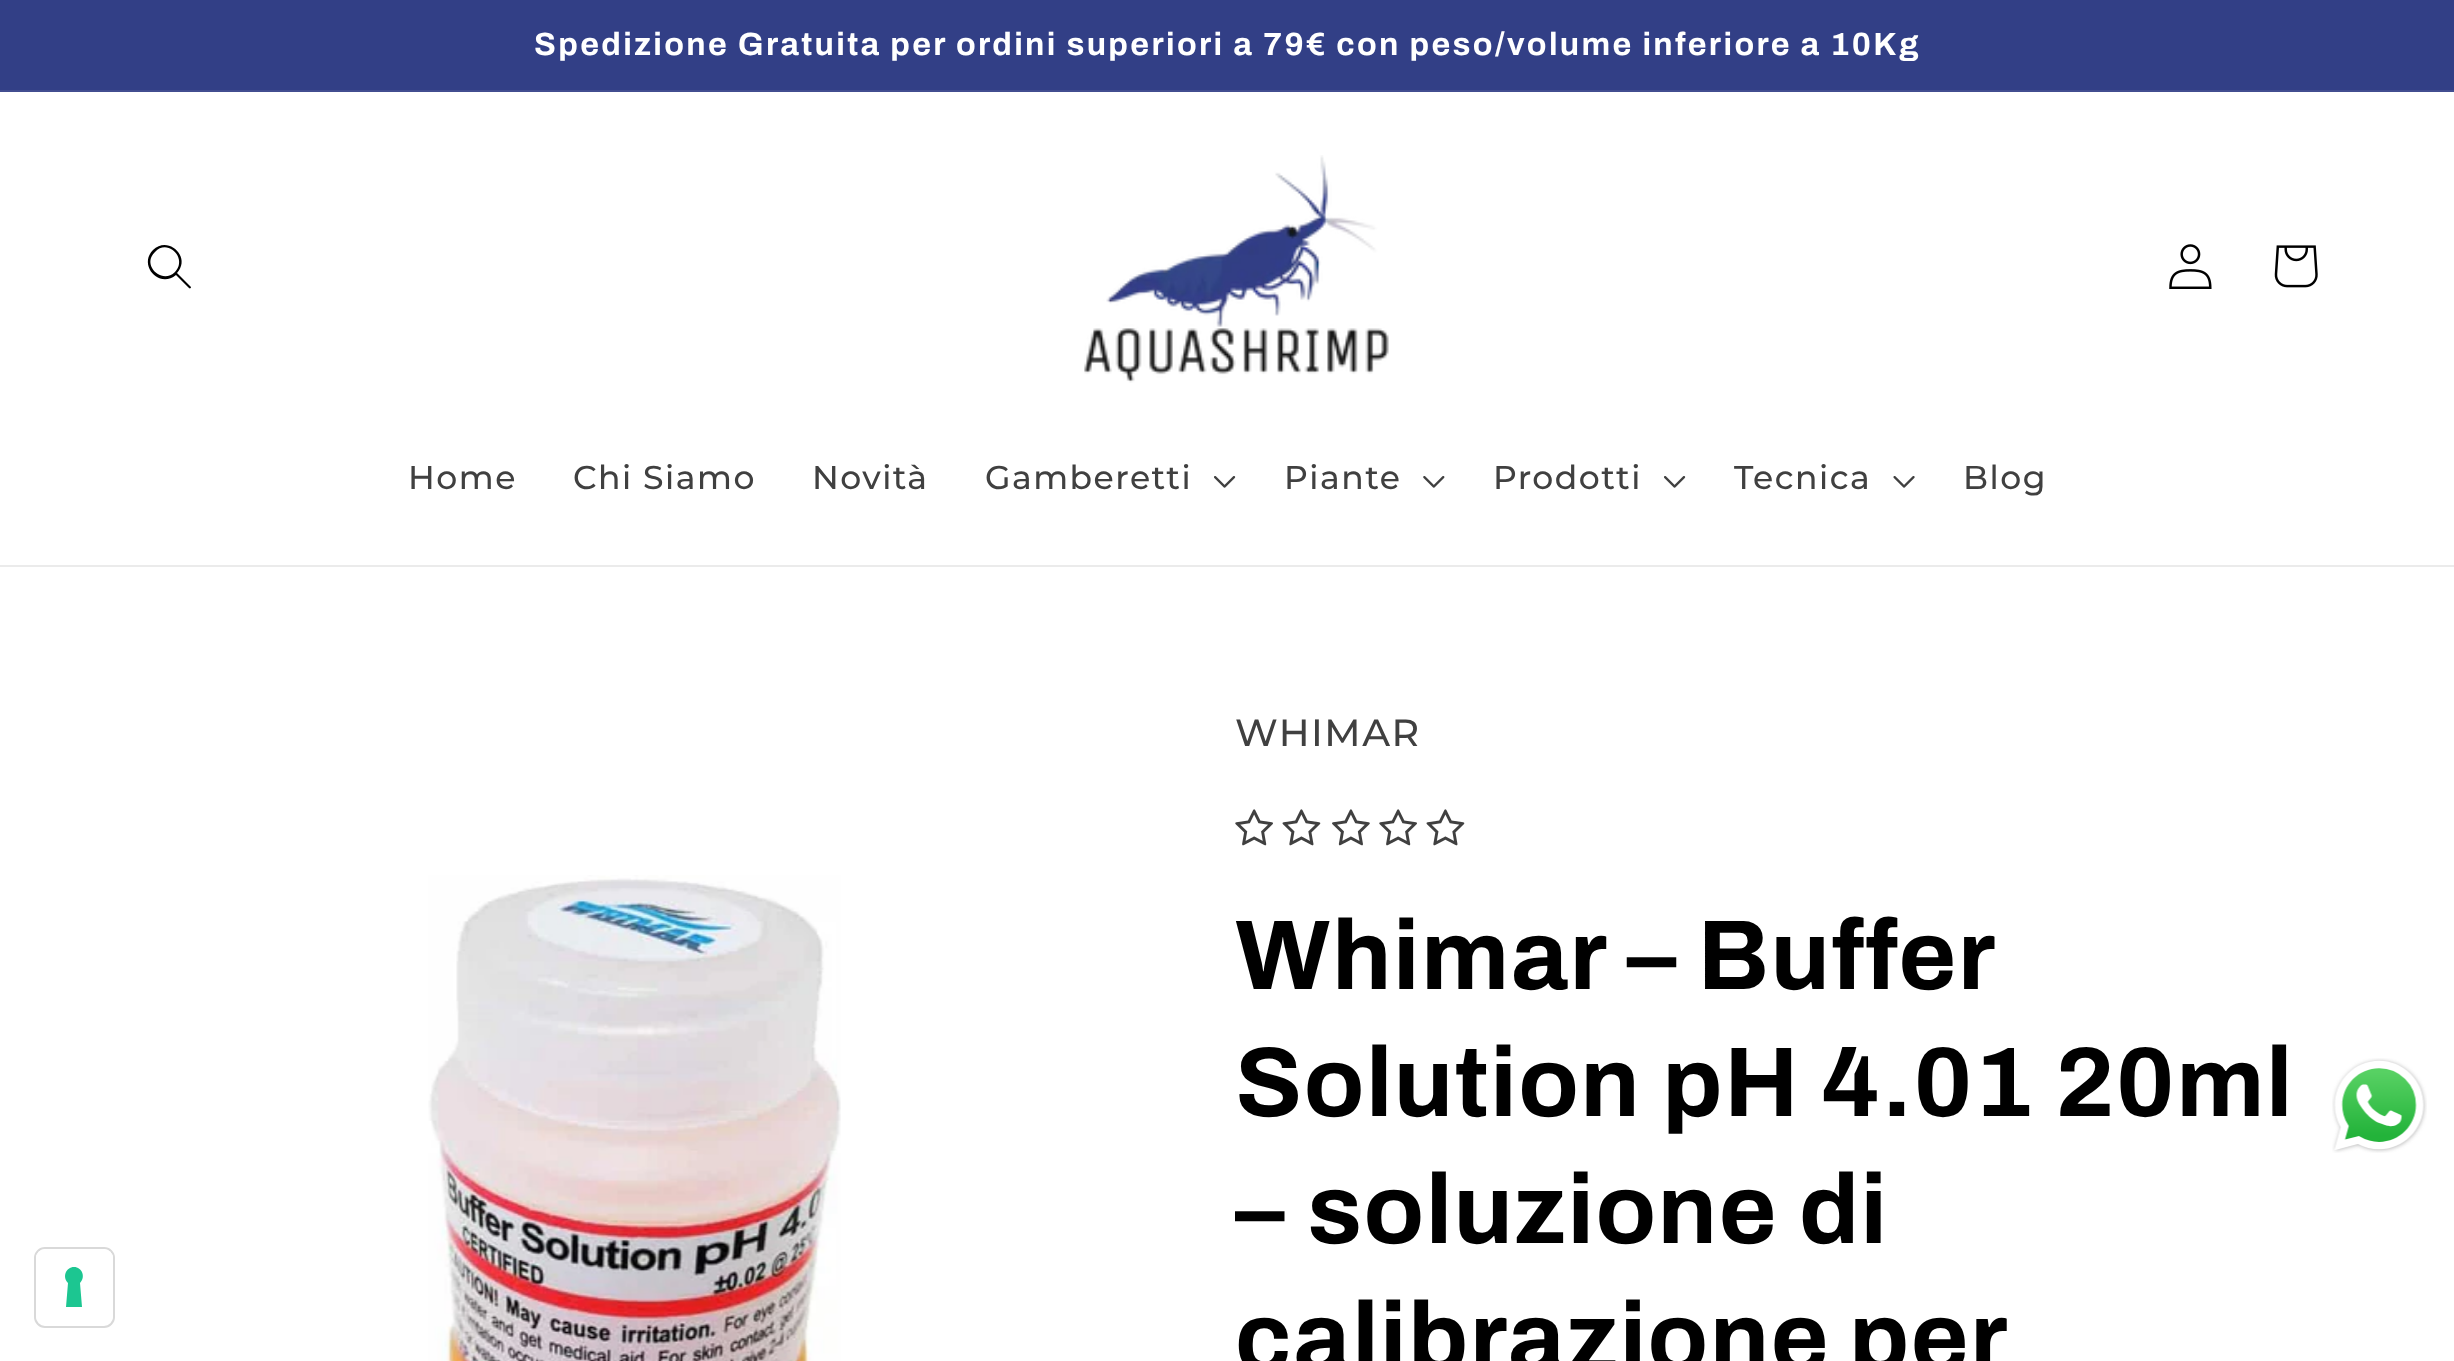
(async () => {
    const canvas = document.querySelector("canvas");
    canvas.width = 2454;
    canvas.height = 1361;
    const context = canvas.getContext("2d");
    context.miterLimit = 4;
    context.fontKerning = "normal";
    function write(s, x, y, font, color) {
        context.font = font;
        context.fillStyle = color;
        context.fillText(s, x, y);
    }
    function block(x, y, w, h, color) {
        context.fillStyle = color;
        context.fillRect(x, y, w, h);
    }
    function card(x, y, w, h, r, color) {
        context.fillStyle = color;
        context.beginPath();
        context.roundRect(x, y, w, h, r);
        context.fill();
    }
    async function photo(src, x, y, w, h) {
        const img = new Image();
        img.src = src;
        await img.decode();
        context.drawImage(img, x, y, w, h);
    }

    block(0, 0, 2454, 1361, "rgb(255, 255, 255)");
    block(0, 0, 2454, 90, "rgb(50, 63, 134)");
    block(0, 90, 2454, 2, "rgb(66, 78, 144)");
    context.letterSpacing = "2.35px";
    write("Spedizione Gratuita per ordini superiori a 79€ con peso/volume inferiore a 10Kg", 534, 55, "bold 32.2px Archivo", "rgb(255, 255, 255)");
    block(0, 565, 2454, 2, "rgb(235, 235, 235)");
    context.fillStyle = "rgb(0, 0, 0)";
    context.beginPath();
    context.moveTo(175, 272);
    context.bezierCurveTo(162, 285, 141, 265, 155, 252);
    context.bezierCurveTo(168, 238, 188, 259, 175, 272);
    context.moveTo(176, 275);
    context.bezierCurveTo(159, 289, 138, 265, 153, 250);
    context.bezierCurveTo(168, 235, 192, 257, 177, 273);
    context.lineTo(191, 287);
    context.bezierCurveTo(191, 288, 190, 289, 189, 288);
    context.closePath();
    context.fill("evenodd");
    await photo("media/1.png", 1084, 155, 305, 228);
    await photo("media/2.png", 2169, 244, 43, 45);
    await photo("media/3.png", 2274, 245, 44, 43);
    context.letterSpacing = "1.5px";
    write("Home", 408, 489, "500 33px Montserrat", "rgb(64, 64, 64)");
    write("Chi Siamo", 573, 489, "500 33px Montserrat", "rgb(64, 64, 64)");
    write("Novità", 812, 489, "500 33px Montserrat", "rgb(64, 64, 64)");
    write("Gamberetti", 985, 489, "500 33px Montserrat", "rgb(64, 64, 64)");
    await photo("media/4.png", 1214, 476, 22, 12);
    write("Piante", 1284, 489, "500 33px Montserrat", "rgb(64, 64, 64)");
    await photo("media/5.png", 1423, 476, 22, 12);
    write("Prodotti", 1493, 489, "500 33px Montserrat", "rgb(64, 64, 64)");
    await photo("media/4.png", 1664, 476, 22, 12);
    write("Tecnica", 1734, 489, "500 33px Montserrat", "rgb(64, 64, 64)");
    await photo("media/6.png", 1893, 476, 22, 12);
    write("Blog", 1963, 489, "500 33px Montserrat", "rgb(64, 64, 64)");
    await photo("media/7.png", 428, 875, 413, 486);
    write("WHIMAR", 1235, 746, "500 38px Montserrat", "rgb(64, 64, 64)");
    await photo("media/8.png", 1235, 809, 38, 37);
    await photo("media/9.png", 1282, 809, 39, 37);
    await photo("media/10.png", 1332, 809, 38, 37);
    await photo("media/8.png", 1379, 809, 38, 37);
    await photo("media/9.png", 1426, 809, 39, 37);
    context.wordSpacing = "-1px";
    write("Whimar – Buffer", 1235, 989, "bold 99px Archivo", "rgb(0, 0, 0)");
    context.wordSpacing = "0px";
    write("Solution pH 4.01 20ml", 1235, 1116, "bold 99px Archivo", "rgb(0, 0, 0)");
    write("– soluzione di", 1235, 1243, "bold 99px Archivo", "rgb(0, 0, 0)");
    context.wordSpacing = "-2px";
    write("calibrazione per", 1235, 1371, "bold 99px Archivo", "rgb(0, 0, 0)");
    await photo("media/11.png", 2332, 1058, 95, 95);
    context.beginPath();
    context.roundRect(35, 1248, 79, 79, 10);
    context.strokeStyle = "rgb(217, 217, 217)";
    context.lineWidth = 2;
    context.stroke();
    card(36, 1249, 77, 76, 9, "rgb(255, 255, 255)");
    context.fillStyle = "rgb(28, 198, 145)";
    context.beginPath();
    context.moveTo(74, 1267);
    context.bezierCurveTo(82, 1267, 86, 1277, 80, 1283);
    context.lineTo(82, 1307);
    context.lineTo(66, 1307);
    context.lineTo(68, 1283);
    context.bezierCurveTo(62, 1277, 66, 1267, 74, 1267);
    context.closePath();
    context.fill("evenodd");
})();
